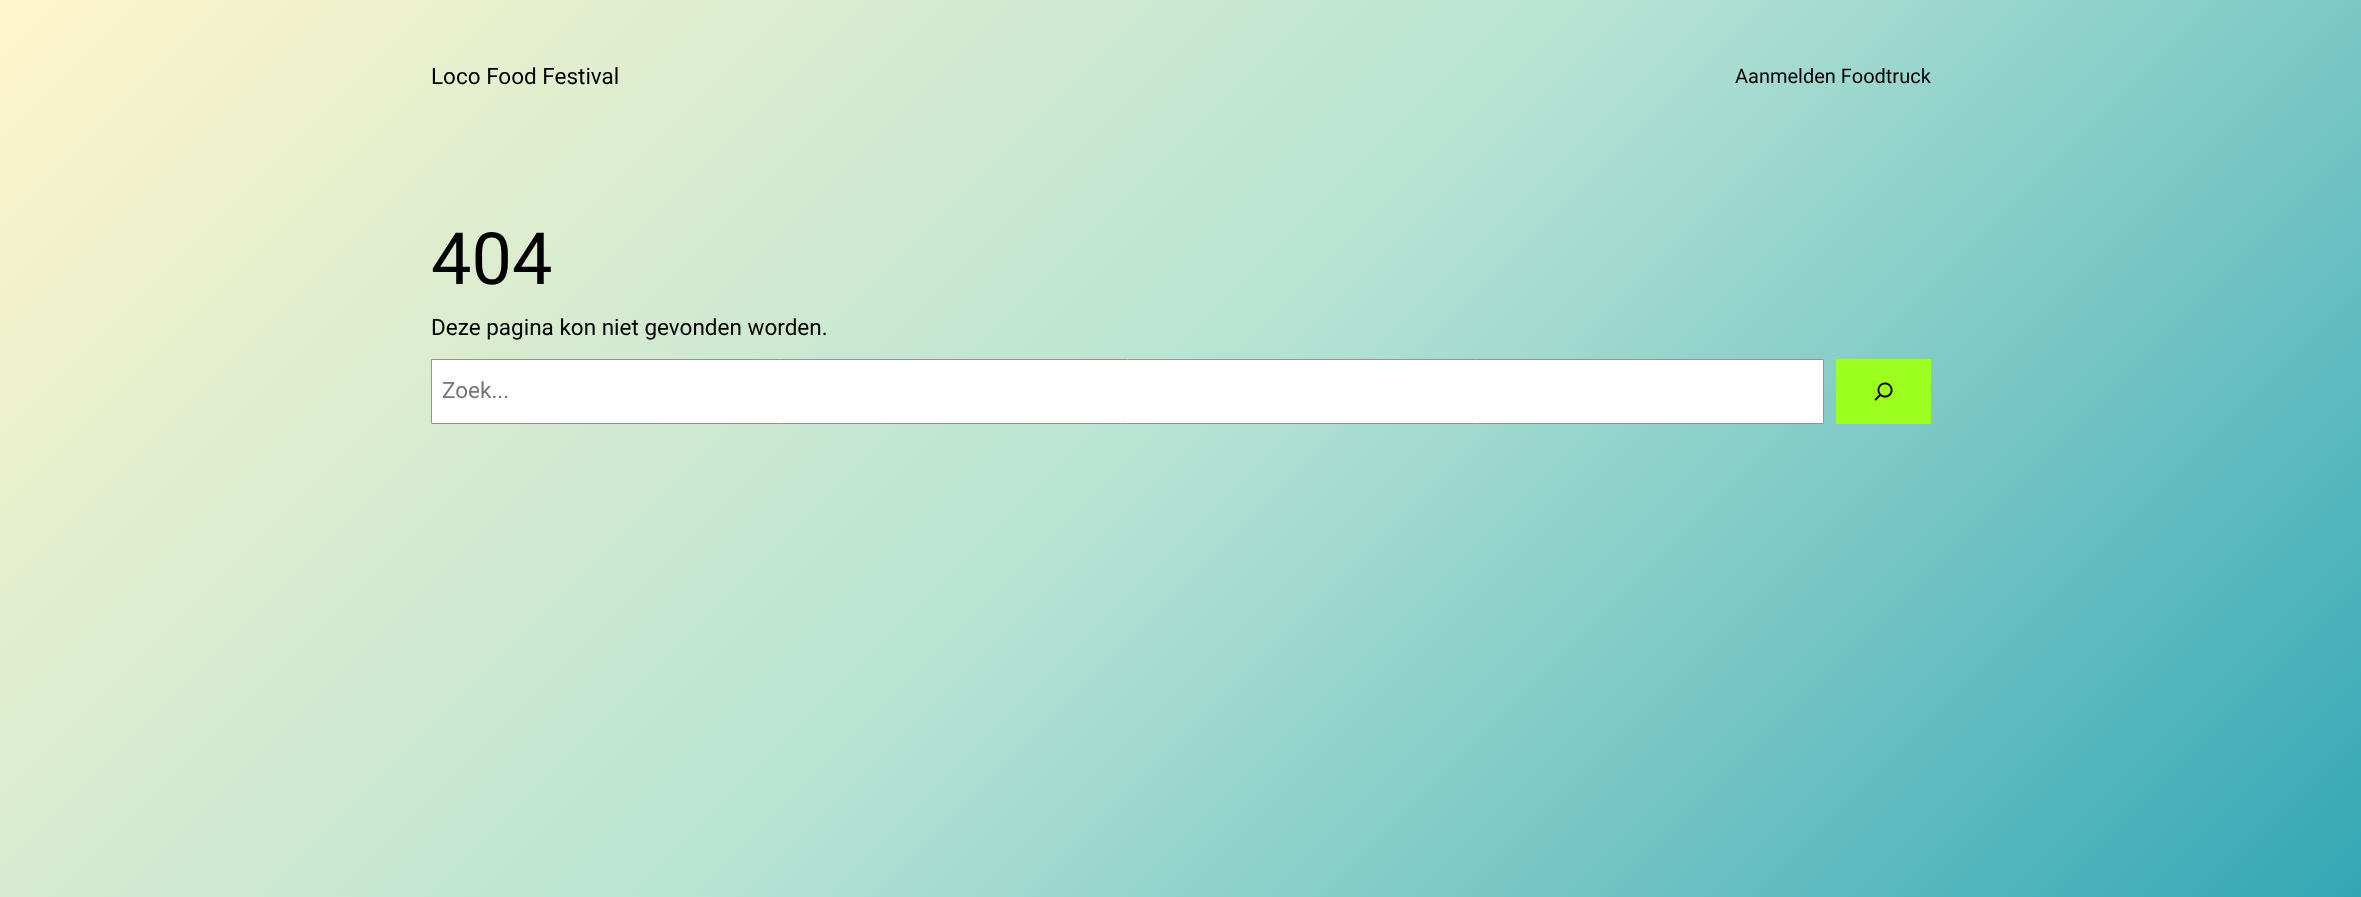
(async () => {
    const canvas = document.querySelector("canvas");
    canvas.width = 2361;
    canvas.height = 897;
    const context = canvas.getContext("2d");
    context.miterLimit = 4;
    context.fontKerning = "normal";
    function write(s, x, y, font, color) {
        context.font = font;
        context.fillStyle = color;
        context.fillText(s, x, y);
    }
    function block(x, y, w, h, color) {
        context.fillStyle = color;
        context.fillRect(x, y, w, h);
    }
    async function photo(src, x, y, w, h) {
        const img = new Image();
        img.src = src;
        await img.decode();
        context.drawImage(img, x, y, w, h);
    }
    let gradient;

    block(0, 0, 2361, 897, "rgb(255, 255, 255)");
    gradient = context.createLinearGradient(366, -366, 1995, 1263);
    gradient.addColorStop(0, "rgb(255, 245, 203)");
    gradient.addColorStop(0.5, "rgb(182, 227, 212)");
    gradient.addColorStop(1, "rgb(51, 167, 181)");
    context.fillStyle = gradient;
    context.fillRect(0, 0, 2361, 897);
    write("Loco Food Festival", 431, 84, "22.5px Roboto", "rgb(0, 0, 0)");
    write("Aanmelden Foodtruck", 1735, 83, "20px Roboto", "rgb(0, 0, 0)");
    write("404", 431, 284, "72px Roboto", "rgb(0, 0, 0)");
    write("Deze pagina kon niet gevonden worden.", 431, 335, "22.5px Roboto", "rgb(0, 0, 0)");
    context.fillStyle = "rgb(255, 255, 255)";
    context.beginPath();
    context.rect(431.5, 359.5, 1392, 64);
    context.fill();
    context.strokeStyle = "rgb(148, 148, 148)";
    context.stroke();
    write("Zoek...", 442, 398, "22.5px Roboto", "rgb(117, 117, 117)");
    block(1836, 359, 95, 65, "rgb(157, 255, 32)");
    await photo("media/1.png", 1874, 382, 19, 19);
})();
